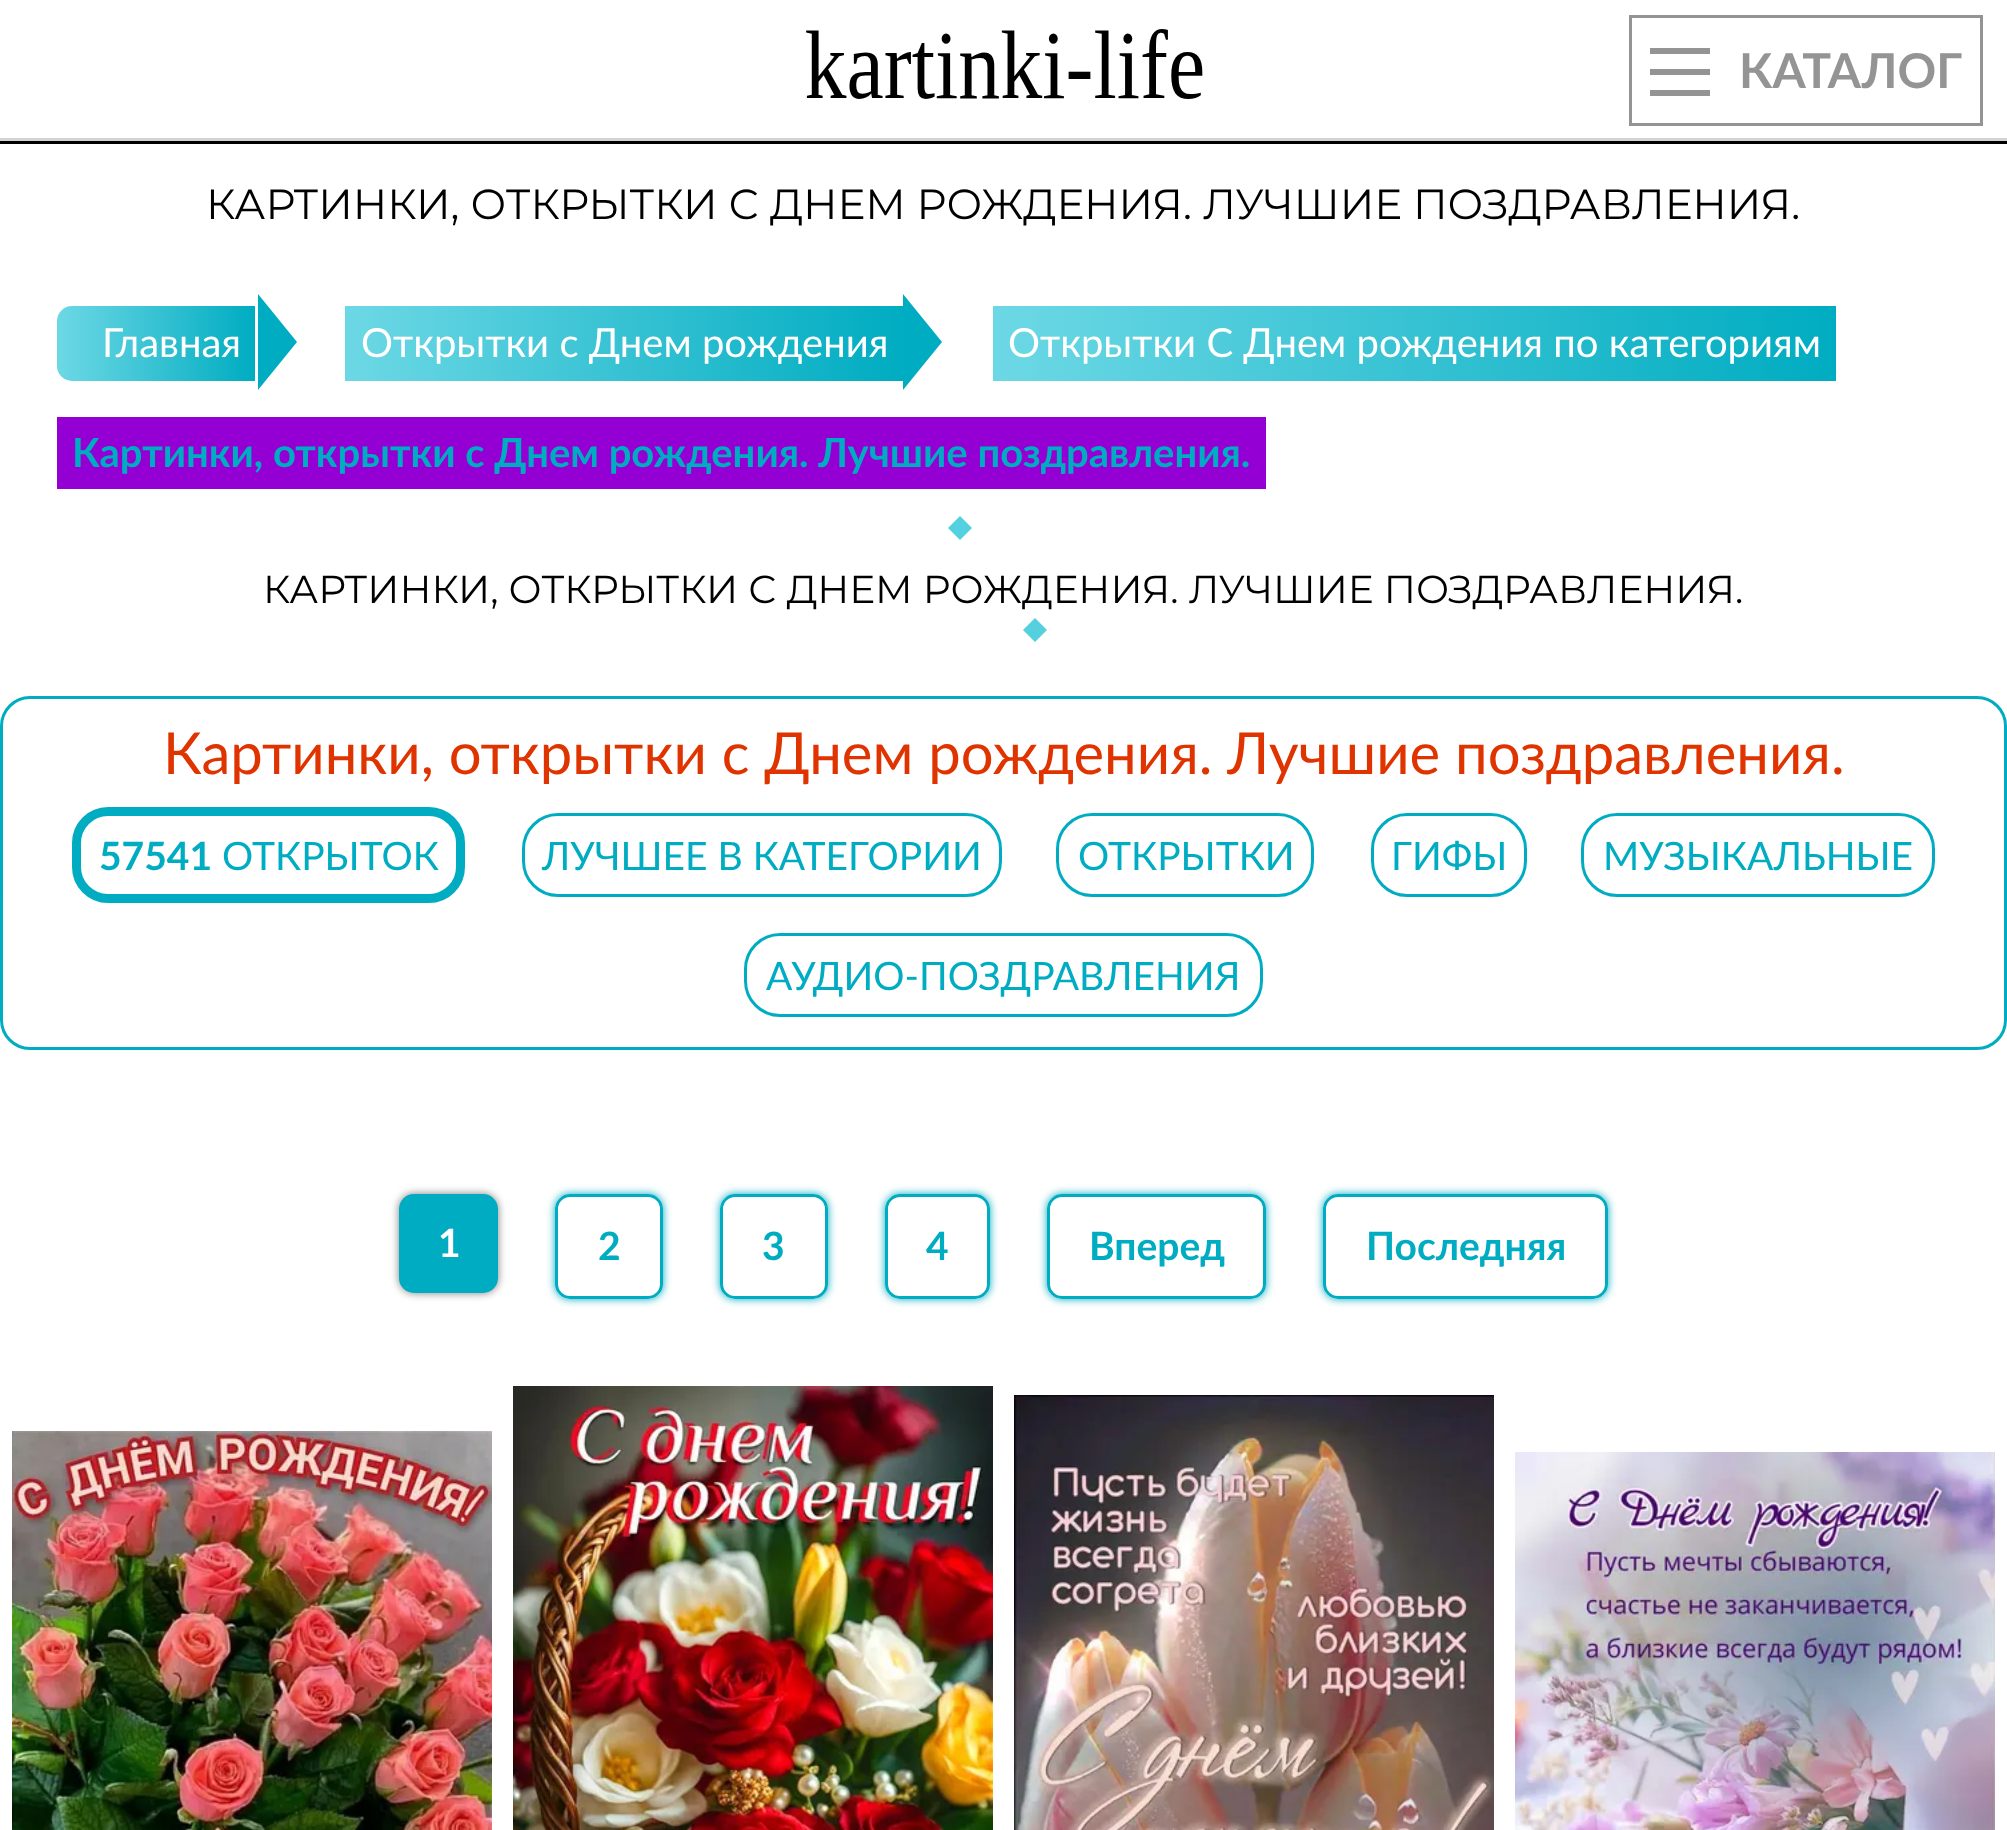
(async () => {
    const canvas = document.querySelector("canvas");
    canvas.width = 2007;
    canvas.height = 1830;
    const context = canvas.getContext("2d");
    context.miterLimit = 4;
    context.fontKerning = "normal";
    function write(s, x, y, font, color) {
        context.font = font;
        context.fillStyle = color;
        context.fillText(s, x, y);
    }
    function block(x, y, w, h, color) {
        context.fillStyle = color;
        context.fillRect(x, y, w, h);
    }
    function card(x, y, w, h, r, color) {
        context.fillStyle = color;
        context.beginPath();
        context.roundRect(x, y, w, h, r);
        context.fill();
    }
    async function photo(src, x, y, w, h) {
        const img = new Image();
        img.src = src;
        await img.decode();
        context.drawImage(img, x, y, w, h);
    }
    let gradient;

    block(0, 0, 2007, 1830, "rgb(255, 255, 255)");
    block(0, 141, 2007, 3, "rgb(0, 0, 0)");
    await photo("media/1.png", 806, 29, 397, 70);
    context.strokeStyle = "rgb(148, 148, 148)";
    context.lineWidth = 3;
    context.strokeRect(1630.5, 16.5, 351, 108);
    block(1650, 48, 60, 6, "rgb(148, 148, 148)");
    block(1650, 69, 60, 6, "rgb(148, 148, 148)");
    block(1650, 90, 60, 6, "rgb(148, 148, 148)");
    write("КАТАЛОГ", 1739, 88, "bold 48px Lato", "rgb(148, 148, 148)");
    block(0, 138, 2007, 3, "rgb(211, 211, 211)");
    write("КАРТИНКИ, ОТКРЫТКИ С ДНЕМ РОЖДЕНИЯ. ЛУЧШИЕ ПОЗДРАВЛЕНИЯ.", 206, 219, "42px Montserrat", "rgb(0, 0, 0)");
    gradient = context.createLinearGradient(57, 344, 255, 344);
    gradient.addColorStop(0, "rgb(109, 216, 229)");
    gradient.addColorStop(1, "rgb(0, 172, 193)");
    context.fillStyle = gradient;
    context.beginPath();
    context.roundRect(57, 306, 198, 75, [15, 0, 0, 15]);
    context.fill();
    write("Главная", 102, 357, "40px Lato", "rgb(255, 255, 255)");
    context.fillStyle = "rgb(0, 172, 193)";
    context.beginPath();
    context.moveTo(258, 390);
    context.lineTo(258, 294);
    context.lineTo(297, 342);
    context.closePath();
    context.fill();
    gradient = context.createLinearGradient(345, 344, 903, 344);
    gradient.addColorStop(0, "rgb(109, 216, 229)");
    gradient.addColorStop(1, "rgb(0, 172, 193)");
    context.fillStyle = gradient;
    context.fillRect(345, 306, 558, 75);
    write("Открытки с Днем рождения", 361, 357, "40px Lato", "rgb(255, 255, 255)");
    context.fillStyle = "rgb(0, 172, 193)";
    context.beginPath();
    context.moveTo(903, 390);
    context.lineTo(903, 294);
    context.lineTo(942, 342);
    context.closePath();
    context.fill();
    gradient = context.createLinearGradient(993, 344, 1836, 343);
    gradient.addColorStop(0, "rgb(109, 216, 229)");
    gradient.addColorStop(1, "rgb(0, 172, 193)");
    context.fillStyle = gradient;
    context.fillRect(993, 306, 843, 75);
    write("Открытки С Днем рождения по категориям", 1008, 357, "40px Lato", "rgb(255, 255, 255)");
    block(57, 417, 1209, 72, "rgb(148, 0, 211)");
    write("Картинки, открытки с Днем рождения. Лучшие поздравления.", 72, 467, "bold 40px Lato", "rgb(0, 172, 193)");
    context.fillStyle = "rgb(84, 208, 223)";
    context.beginPath();
    context.moveTo(948, 528);
    context.lineTo(960, 516);
    context.lineTo(972, 528);
    context.lineTo(960, 540);
    context.closePath();
    context.fill();
    write("КАРТИНКИ, ОТКРЫТКИ С ДНЕМ РОЖДЕНИЯ. ЛУЧШИЕ ПОЗДРАВЛЕНИЯ.", 263, 603, "39px Montserrat", "rgb(0, 0, 0)");
    context.fillStyle = "rgb(84, 208, 223)";
    context.beginPath();
    context.moveTo(1023, 630);
    context.lineTo(1035, 618);
    context.lineTo(1047, 630);
    context.lineTo(1035, 642);
    context.closePath();
    context.fill();
    context.beginPath();
    context.roundRect(1.5, 697.5, 2004, 351, 28.5);
    context.strokeStyle = "rgb(0, 172, 193)";
    context.stroke();
    write("Картинки, открытки с Днем рождения. Лучшие поздравления.", 163, 774, "58px Lato", "rgb(224, 52, 0)");
    context.beginPath();
    context.roundRect(76.5, 811.5, 384, 87, 31.5);
    context.lineWidth = 9;
    context.stroke();
    write("57541", 99, 870, "bold 39px Lato", "rgb(0, 172, 193)");
    write("ОТКРЫТОК", 222, 870, "39px Lato", "rgb(0, 172, 193)");
    context.beginPath();
    context.roundRect(523.5, 814.5, 477, 81, 34.5);
    context.lineWidth = 3;
    context.stroke();
    write("ЛУЧШЕЕ В КАТЕГОРИИ", 542, 870, "39px Lato", "rgb(0, 172, 193)");
    context.beginPath();
    context.roundRect(1057.5, 814.5, 255, 81, 34.5);
    context.stroke();
    write("ОТКРЫТКИ", 1078, 870, "39px Lato", "rgb(0, 172, 193)");
    context.beginPath();
    context.roundRect(1372.5, 814.5, 153, 81, 34.5);
    context.stroke();
    write("ГИФЫ", 1391, 870, "39px Lato", "rgb(0, 172, 193)");
    context.beginPath();
    context.roundRect(1582.5, 814.5, 351, 81, 34.5);
    context.stroke();
    write("МУЗЫКАЛЬНЫЕ", 1603, 870, "39px Lato", "rgb(0, 172, 193)");
    context.beginPath();
    context.roundRect(745.5, 934.5, 516, 81, 34.5);
    context.stroke();
    write("АУДИО-ПОЗДРАВЛЕНИЯ", 766, 990, "39px Lato", "rgb(0, 172, 193)");
    context.fillStyle = "rgba(0, 0, 0, 0.5)";
    context.filter = "blur(4.5px)";
    context.beginPath();
    context.roundRect(399, 1194, 99, 99, 15);
    context.fill();
    context.filter = "none";
    card(399, 1194, 99, 99, 15, "rgb(0, 172, 193)");
    write("1", 438, 1257, "bold 39px Lato", "rgb(255, 255, 255)");
    context.save();
    context.beginPath();
    context.moveTo(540, 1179);
    context.lineTo(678, 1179);
    context.lineTo(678, 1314);
    context.lineTo(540, 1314);
    context.closePath();
    context.moveTo(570, 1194);
    context.lineTo(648, 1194);
    context.bezierCurveTo(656.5, 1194, 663, 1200.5, 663, 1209);
    context.lineTo(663, 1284);
    context.bezierCurveTo(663, 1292.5, 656.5, 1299, 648, 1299);
    context.lineTo(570, 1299);
    context.bezierCurveTo(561.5, 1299, 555, 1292.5, 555, 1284);
    context.lineTo(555, 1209);
    context.bezierCurveTo(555, 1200.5, 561.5, 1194, 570, 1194);
    context.closePath();
    context.clip("evenodd");
    context.fillStyle = "rgb(0, 172, 193)";
    context.filter = "blur(4.5px)";
    context.beginPath();
    context.roundRect(555, 1194, 108, 105, 15);
    context.fill();
    context.filter = "none";
    context.restore();
    context.beginPath();
    context.roundRect(556.5, 1195.5, 105, 102, 13.5);
    context.stroke();
    write("2", 598, 1260, "bold 39px Lato", "rgb(0, 172, 193)");
    context.save();
    context.beginPath();
    context.moveTo(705, 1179);
    context.lineTo(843, 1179);
    context.lineTo(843, 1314);
    context.lineTo(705, 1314);
    context.closePath();
    context.moveTo(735, 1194);
    context.lineTo(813, 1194);
    context.bezierCurveTo(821.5, 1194, 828, 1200.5, 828, 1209);
    context.lineTo(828, 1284);
    context.bezierCurveTo(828, 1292.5, 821.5, 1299, 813, 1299);
    context.lineTo(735, 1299);
    context.bezierCurveTo(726.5, 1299, 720, 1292.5, 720, 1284);
    context.lineTo(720, 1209);
    context.bezierCurveTo(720, 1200.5, 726.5, 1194, 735, 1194);
    context.closePath();
    context.clip("evenodd");
    context.filter = "blur(4.5px)";
    context.beginPath();
    context.roundRect(720, 1194, 108, 105, 15);
    context.fill();
    context.filter = "none";
    context.restore();
    context.beginPath();
    context.roundRect(721.5, 1195.5, 105, 102, 13.5);
    context.stroke();
    write("3", 762, 1260, "bold 39px Lato", "rgb(0, 172, 193)");
    context.save();
    context.beginPath();
    context.moveTo(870, 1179);
    context.lineTo(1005, 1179);
    context.lineTo(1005, 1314);
    context.lineTo(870, 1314);
    context.closePath();
    context.moveTo(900, 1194);
    context.lineTo(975, 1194);
    context.bezierCurveTo(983.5, 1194, 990, 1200.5, 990, 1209);
    context.lineTo(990, 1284);
    context.bezierCurveTo(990, 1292.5, 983.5, 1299, 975, 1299);
    context.lineTo(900, 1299);
    context.bezierCurveTo(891.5, 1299, 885, 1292.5, 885, 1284);
    context.lineTo(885, 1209);
    context.bezierCurveTo(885, 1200.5, 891.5, 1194, 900, 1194);
    context.closePath();
    context.clip("evenodd");
    context.filter = "blur(4.5px)";
    context.beginPath();
    context.roundRect(885, 1194, 105, 105, 15);
    context.fill();
    context.filter = "none";
    context.restore();
    context.beginPath();
    context.roundRect(886.5, 1195.5, 102, 102, 13.5);
    context.stroke();
    write("4", 926, 1260, "bold 39px Lato", "rgb(0, 172, 193)");
    context.save();
    context.beginPath();
    context.moveTo(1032, 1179);
    context.lineTo(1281, 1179);
    context.lineTo(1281, 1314);
    context.lineTo(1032, 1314);
    context.closePath();
    context.moveTo(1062, 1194);
    context.lineTo(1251, 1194);
    context.bezierCurveTo(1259.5, 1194, 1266, 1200.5, 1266, 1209);
    context.lineTo(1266, 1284);
    context.bezierCurveTo(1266, 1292.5, 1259.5, 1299, 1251, 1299);
    context.lineTo(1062, 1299);
    context.bezierCurveTo(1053.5, 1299, 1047, 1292.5, 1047, 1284);
    context.lineTo(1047, 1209);
    context.bezierCurveTo(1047, 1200.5, 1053.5, 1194, 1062, 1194);
    context.closePath();
    context.clip("evenodd");
    context.filter = "blur(4.5px)";
    context.beginPath();
    context.roundRect(1047, 1194, 219, 105, 15);
    context.fill();
    context.filter = "none";
    context.restore();
    context.beginPath();
    context.roundRect(1048.5, 1195.5, 216, 102, 13.5);
    context.stroke();
    write("Вперед", 1089, 1260, "bold 39px Lato", "rgb(0, 172, 193)");
    context.save();
    context.beginPath();
    context.moveTo(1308, 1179);
    context.lineTo(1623, 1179);
    context.lineTo(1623, 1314);
    context.lineTo(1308, 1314);
    context.closePath();
    context.moveTo(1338, 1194);
    context.lineTo(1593, 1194);
    context.bezierCurveTo(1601.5, 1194, 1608, 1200.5, 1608, 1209);
    context.lineTo(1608, 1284);
    context.bezierCurveTo(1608, 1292.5, 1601.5, 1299, 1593, 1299);
    context.lineTo(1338, 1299);
    context.bezierCurveTo(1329.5, 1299, 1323, 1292.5, 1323, 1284);
    context.lineTo(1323, 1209);
    context.bezierCurveTo(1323, 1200.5, 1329.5, 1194, 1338, 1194);
    context.closePath();
    context.clip("evenodd");
    context.filter = "blur(4.5px)";
    context.beginPath();
    context.roundRect(1323, 1194, 285, 105, 15);
    context.fill();
    context.filter = "none";
    context.restore();
    context.beginPath();
    context.roundRect(1324.5, 1195.5, 282, 102, 13.5);
    context.stroke();
    write("Последняя", 1366, 1260, "bold 39px Lato", "rgb(0, 172, 193)");
    await photo("media/2.png", 12, 1431, 480, 399);
    await photo("media/3.png", 513, 1386, 480, 444);
    await photo("media/4.png", 1014, 1395, 480, 435);
    await photo("media/5.png", 1515, 1452, 480, 378);
})();
